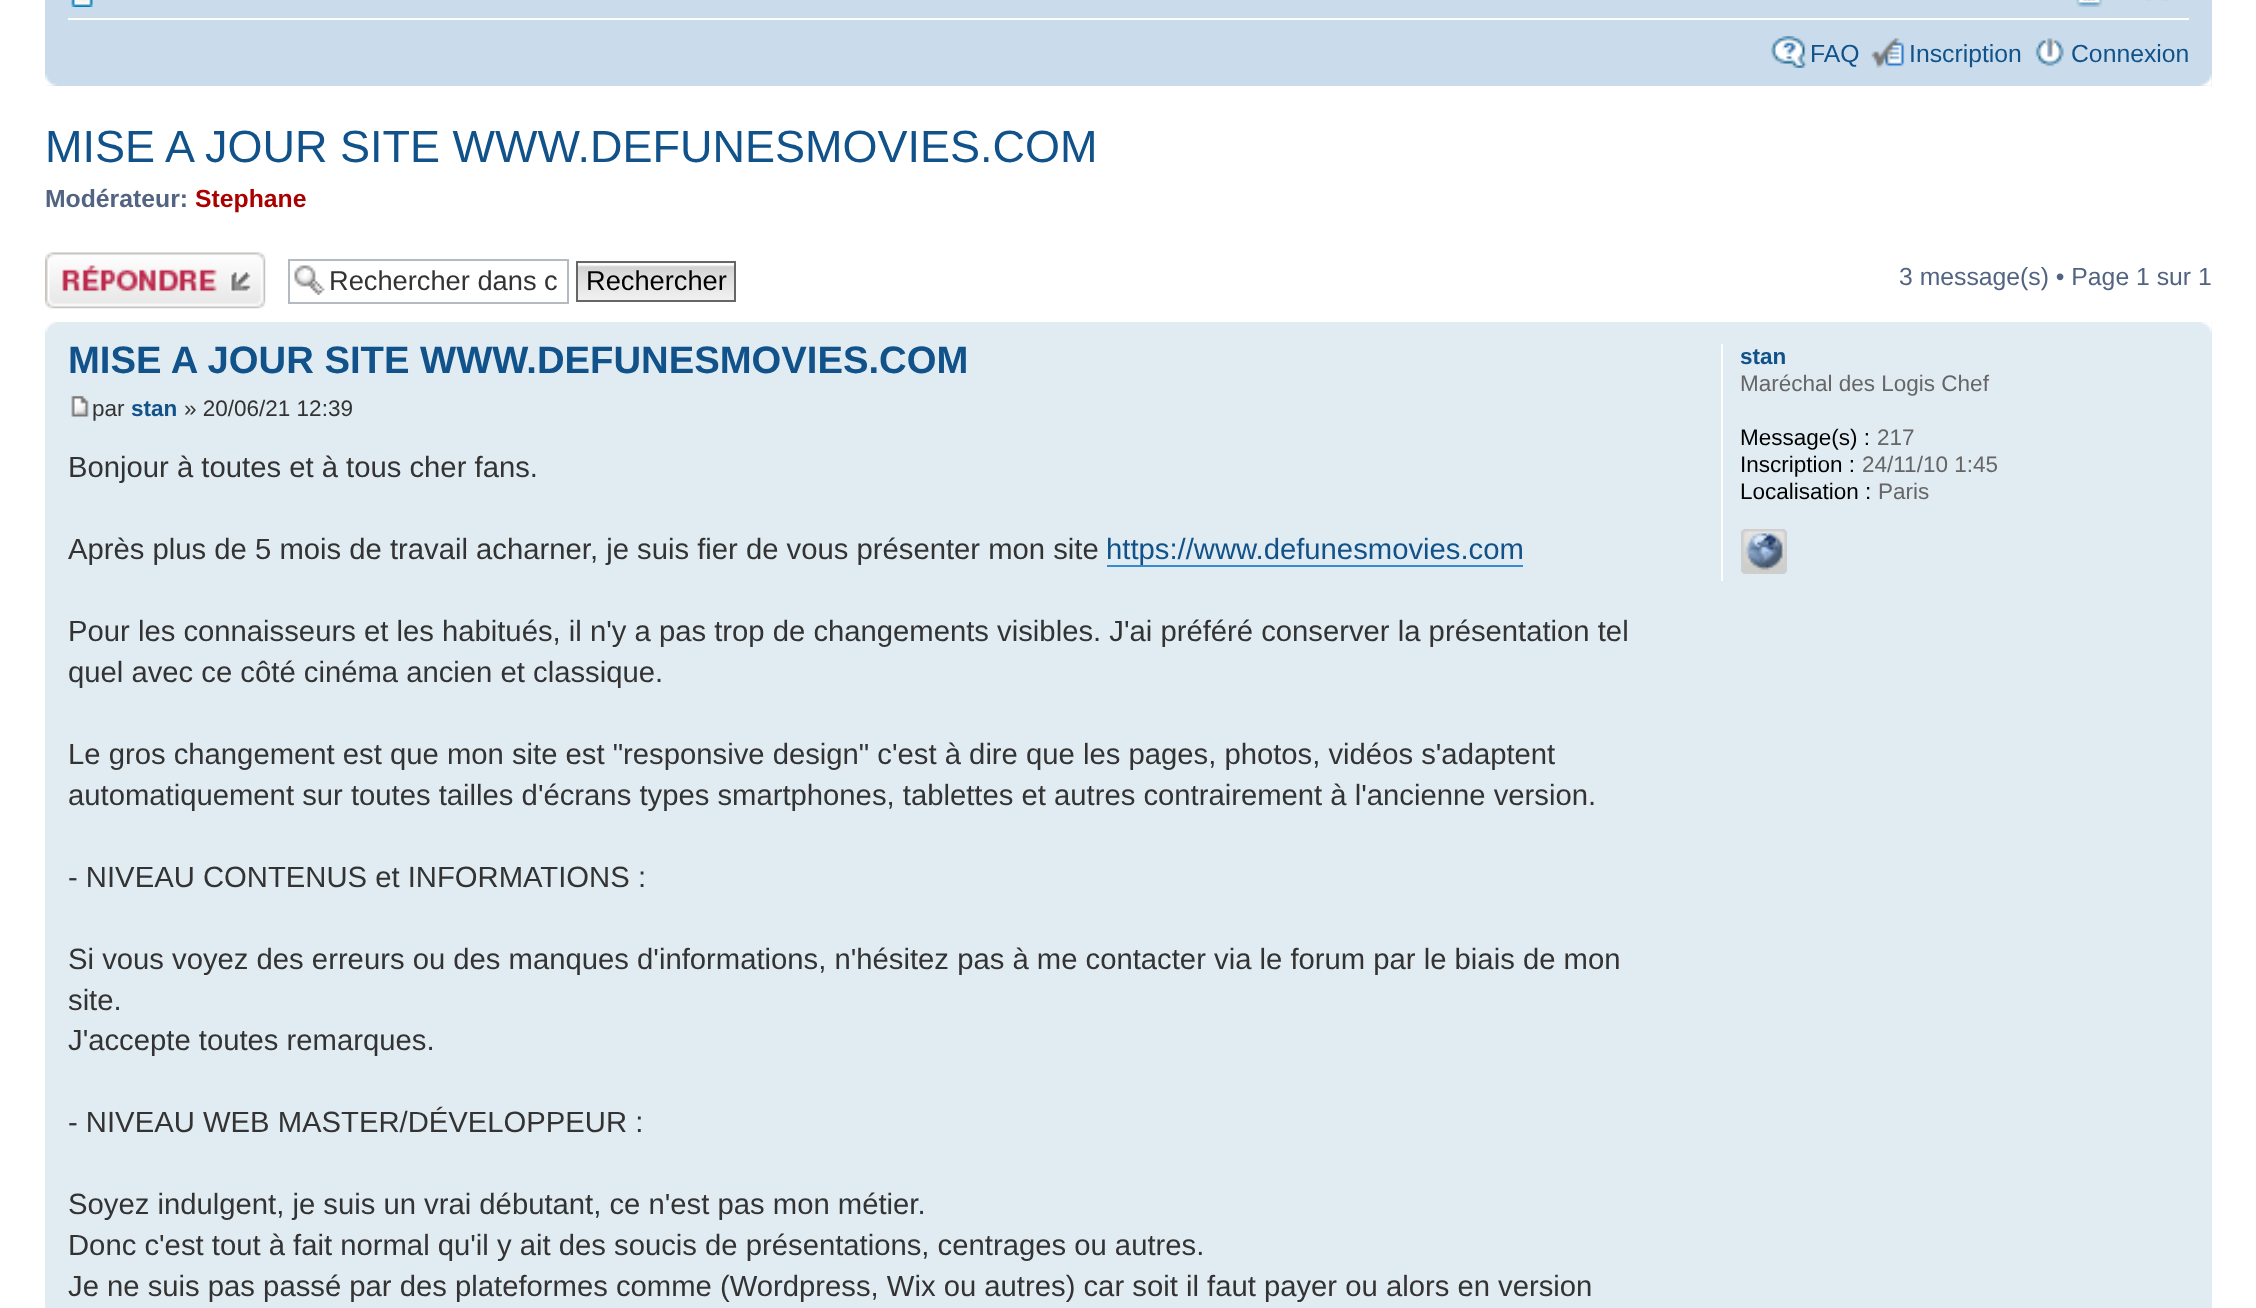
(async () => {
    const canvas = document.querySelector("canvas");
    canvas.width = 2256;
    canvas.height = 1308;
    const context = canvas.getContext("2d");
    context.miterLimit = 4;
    context.fontKerning = "normal";
    function write(s, x, y, font, color) {
        context.font = font;
        context.fillStyle = color;
        context.fillText(s, x, y);
    }
    function block(x, y, w, h, color) {
        context.fillStyle = color;
        context.fillRect(x, y, w, h);
    }
    async function photo(src, x, y, w, h) {
        const img = new Image();
        img.src = src;
        await img.decode();
        context.drawImage(img, x, y, w, h);
    }

    block(0, 0, 2256, 1308, "rgb(255, 255, 255)");
    block(45, 0, 2167, 86, "rgb(202, 220, 235)");
    block(68, 18, 2121, 2, "rgb(255, 255, 255)");
    await photo("media/1.png", 71, 0, 22, 7);
    await photo("media/2.png", 2076, 0, 27, 7);
    await photo("media/3.png", 2146, 0, 23, 1);
    await photo("media/4.png", 1771, 36, 36, 32);
    write("FAQ", 1810, 62, "24.75px Liberation Sans", "rgb(16, 82, 137)");
    await photo("media/5.png", 1871, 38, 34, 30);
    write("Inscription", 1909, 62, "24.75px Liberation Sans", "rgb(16, 82, 137)");
    await photo("media/6.png", 2035, 38, 29, 29);
    write("Connexion", 2071, 62, "24.75px Liberation Sans", "rgb(16, 82, 137)");
    await photo("media/7.png", 45, 74, 12, 12);
    await photo("media/8.png", 2200, 74, 12, 12);
    write("MISE A JOUR SITE WWW.DEFUNESMOVIES.COM", 45, 162, "45px Liberation Sans", "rgb(16, 82, 137)");
    write("Modérateur:", 45, 207, "bold 24.75px Liberation Sans", "rgb(83, 100, 130)");
    write("Stephane", 195, 207, "bold 24.75px Liberation Sans", "rgb(170, 0, 0)");
    await photo("media/9.png", 45, 252, 221, 57);
    await photo("media/10.png", 294, 265, 31, 30);
    context.strokeStyle = "rgb(180, 186, 192)";
    context.lineWidth = 2;
    context.strokeRect(289, 260, 279, 43);
    write("Rechercher dans c", 329, 290, "27.25px Liberation Sans", "rgb(51, 51, 51)");
    block(578, 263, 156, 1, "rgb(250, 250, 250)");
    await photo("media/11.png", 578, 264, 156, 36);
    context.strokeStyle = "rgb(102, 102, 102)";
    context.strokeRect(577, 262, 158, 39);
    write("Rechercher", 586, 290, "27.25px Liberation Sans", "rgb(0, 0, 0)");
    write("3 message(s) • Page 1 sur 1", 1899, 285, "24.75px Liberation Sans", "rgb(83, 100, 130)");
    block(45, 322, 2167, 986, "rgb(225, 235, 242)");
    await photo("media/12.png", 45, 322, 11, 11);
    await photo("media/13.png", 2201, 322, 11, 11);
    write("MISE A JOUR SITE WWW.DEFUNESMOVIES.COM", 68, 373, "bold 38.25px Liberation Sans", "rgb(16, 82, 137)");
    await photo("media/14.png", 71, 396, 18, 21);
    write("par", 92, 416, "22.5px Liberation Sans", "rgb(51, 51, 51)");
    write("stan", 131, 416, "bold 22.5px Liberation Sans", "rgb(16, 82, 137)");
    write("» 20/06/21 12:39", 184, 416, "22.5px Liberation Sans", "rgb(51, 51, 51)");
    write("Bonjour à toutes et à tous cher fans.", 68, 477, "29.25px Liberation Sans", "rgb(51, 51, 51)");
    write("Après plus de 5 mois de travail acharner, je suis fier de vous présenter mon site", 68, 559, "29.25px Liberation Sans", "rgb(51, 51, 51)");
    block(1107, 565, 416, 2, "rgb(54, 138, 210)");
    write("https://www.defunesmovies.com", 1106, 559, "29.25px Liberation Sans", "rgb(16, 82, 137)");
    write("Pour les connaisseurs et les habitués, il n'y a pas trop de changements visibles. J'ai préféré conserver la présentation tel", 68, 641, "29.25px Liberation Sans", "rgb(51, 51, 51)");
    write("quel avec ce côté cinéma ancien et classique.", 68, 682, "29.25px Liberation Sans", "rgb(51, 51, 51)");
    write("Le gros changement est que mon site est \"responsive design\" c'est à dire que les pages, photos, vidéos s'adaptent", 68, 764, "29.25px Liberation Sans", "rgb(51, 51, 51)");
    write("automatiquement sur toutes tailles d'écrans types smartphones, tablettes et autres contrairement à l'ancienne version.", 68, 805, "29.25px Liberation Sans", "rgb(51, 51, 51)");
    write("- NIVEAU CONTENUS et INFORMATIONS :", 68, 887, "29.25px Liberation Sans", "rgb(51, 51, 51)");
    write("Si vous voyez des erreurs ou des manques d'informations, n'hésitez pas à me contacter via le forum par le biais de mon", 68, 969, "29.25px Liberation Sans", "rgb(51, 51, 51)");
    write("site.", 68, 1010, "29.25px Liberation Sans", "rgb(51, 51, 51)");
    write("J'accepte toutes remarques.", 68, 1050, "29.25px Liberation Sans", "rgb(51, 51, 51)");
    write("- NIVEAU WEB MASTER/DÉVELOPPEUR :", 68, 1132, "29.25px Liberation Sans", "rgb(51, 51, 51)");
    write("Soyez indulgent, je suis un vrai débutant, ce n'est pas mon métier.", 68, 1214, "29.25px Liberation Sans", "rgb(51, 51, 51)");
    write("Donc c'est tout à fait normal qu'il y ait des soucis de présentations, centrages ou autres.", 68, 1255, "29.25px Liberation Sans", "rgb(51, 51, 51)");
    write("Je ne suis pas passé par des plateformes comme (Wordpress, Wix ou autres) car soit il faut payer ou alors en version", 68, 1296, "29.25px Liberation Sans", "rgb(51, 51, 51)");
    block(1721, 344, 2, 237, "rgb(255, 255, 255)");
    write("stan", 1740, 364, "bold 22.5px Liberation Sans", "rgb(16, 82, 137)");
    write("Maréchal des Logis Chef", 1740, 391, "22.5px Liberation Sans", "rgb(102, 102, 102)");
    write("Message(s) :", 1740, 445, "22.5px Liberation Sans", "rgb(0, 0, 0)");
    write("217", 1877, 445, "22.5px Liberation Sans", "rgb(102, 102, 102)");
    write("Inscription :", 1740, 472, "22.5px Liberation Sans", "rgb(0, 0, 0)");
    write("24/11/10 1:45", 1862, 472, "22.5px Liberation Sans", "rgb(102, 102, 102)");
    write("Localisation :", 1740, 499, "22.5px Liberation Sans", "rgb(0, 0, 0)");
    write("Paris", 1878, 499, "22.5px Liberation Sans", "rgb(102, 102, 102)");
    await photo("media/15.png", 1741, 529, 46, 45);
    await photo("media/16.png", 1741, 529, 46, 45);
})();
